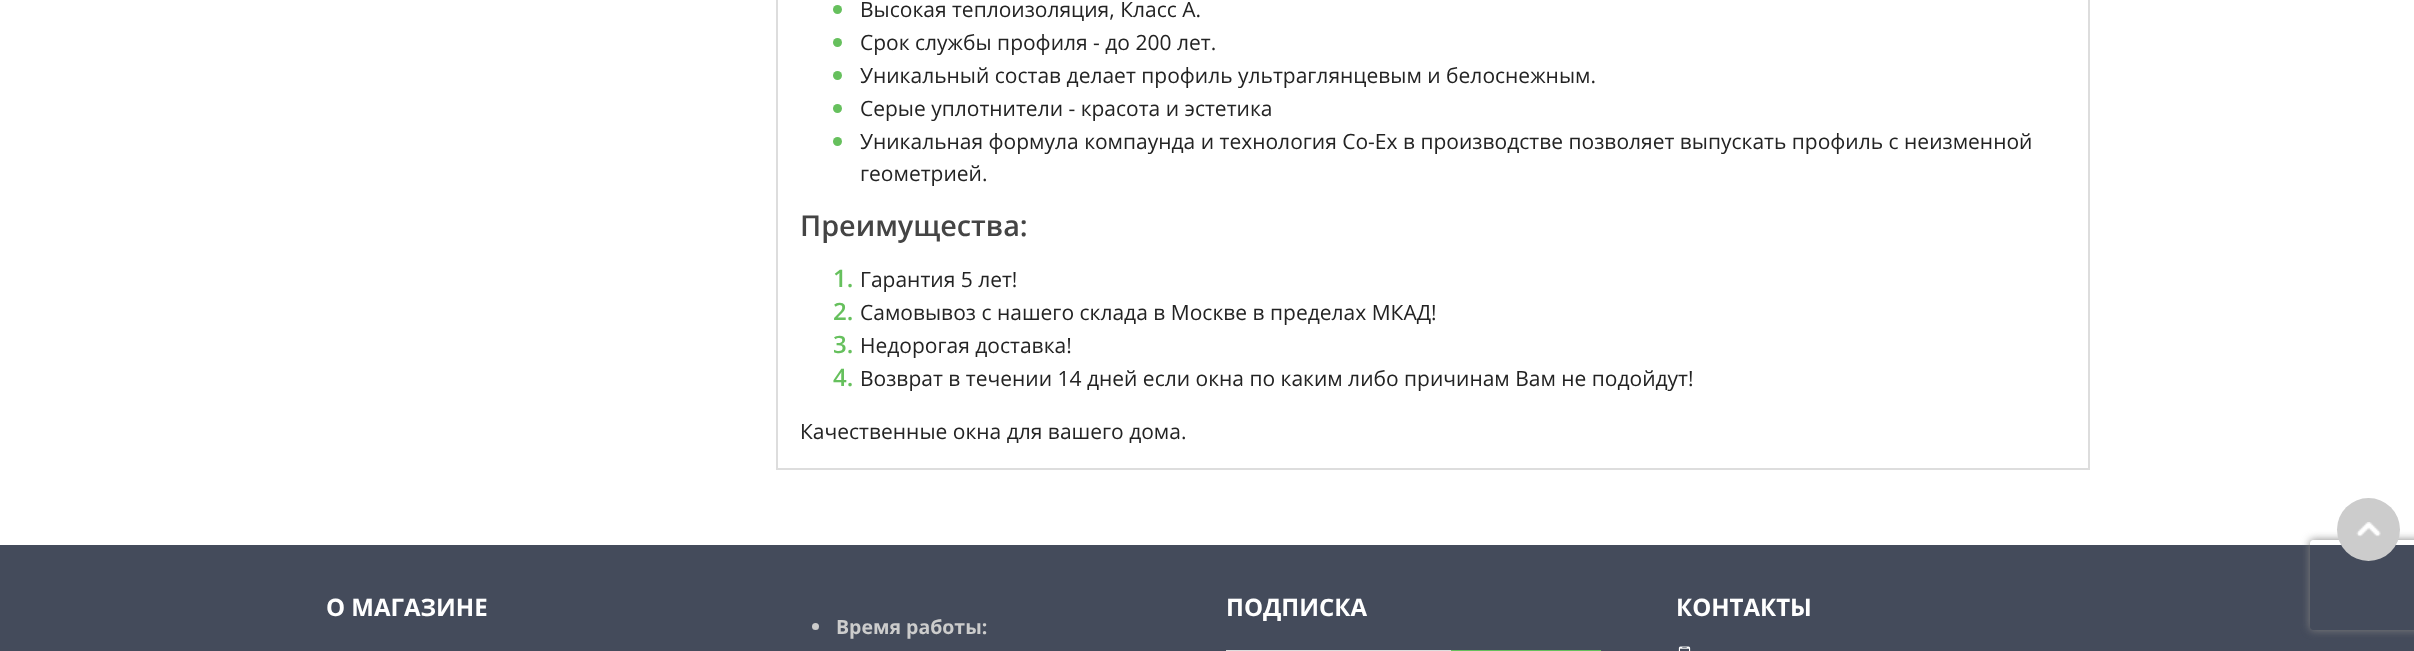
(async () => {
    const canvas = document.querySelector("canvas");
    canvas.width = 2414;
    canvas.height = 651;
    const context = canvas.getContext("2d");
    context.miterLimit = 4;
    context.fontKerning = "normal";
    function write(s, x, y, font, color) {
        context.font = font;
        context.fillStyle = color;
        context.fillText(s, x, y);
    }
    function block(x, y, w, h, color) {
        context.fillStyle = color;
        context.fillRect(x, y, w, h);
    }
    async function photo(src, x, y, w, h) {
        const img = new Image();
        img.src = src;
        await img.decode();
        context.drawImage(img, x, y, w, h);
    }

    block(0, 0, 2414, 651, "rgb(255, 255, 255)");
    context.strokeStyle = "rgb(221, 221, 221)";
    context.lineWidth = 2;
    context.strokeRect(777, -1, 1312, 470);
    context.fillStyle = "rgb(102, 192, 93)";
    context.beginPath();
    context.arc(837.5, 9.5, 4.5, 0, Math.PI * 2);
    context.fill();
    write("Высокая теплоизоляция, Класс А.", 860, 17, "21px Open Sans", "rgb(35, 35, 35)");
    context.fillStyle = "rgb(102, 192, 93)";
    context.beginPath();
    context.arc(837.5, 42.5, 4.5, 0, Math.PI * 2);
    context.fill();
    write("Срок службы профиля - до 200 лет.", 860, 50, "21px Open Sans", "rgb(35, 35, 35)");
    context.fillStyle = "rgb(102, 192, 93)";
    context.beginPath();
    context.arc(837.5, 75.5, 4.5, 0, Math.PI * 2);
    context.fill();
    write("Уникальный состав делает профиль ультраглянцевым и белоснежным.", 860, 83, "21px Open Sans", "rgb(35, 35, 35)");
    context.fillStyle = "rgb(102, 192, 93)";
    context.beginPath();
    context.arc(837.5, 108.5, 4.5, 0, Math.PI * 2);
    context.fill();
    write("Серые уплотнители - красота и эстетика", 860, 116, "21px Open Sans", "rgb(35, 35, 35)");
    context.fillStyle = "rgb(102, 192, 93)";
    context.beginPath();
    context.arc(837.5, 141.5, 4.5, 0, Math.PI * 2);
    context.fill();
    write("Уникальная формула компаунда и технология Co-Ex в производстве позволяет выпускать профиль с неизменной", 860, 149, "21px Open Sans", "rgb(35, 35, 35)");
    write("геометрией.", 860, 181, "21px Open Sans", "rgb(35, 35, 35)");
    write("Преимущества:", 800, 236, "600 28.75px Open Sans", "rgb(68, 68, 68)");
    write("1.", 833, 287, "600 24px Open Sans", "rgb(102, 192, 93)");
    write("Гарантия 5 лет!", 860, 287, "21px Open Sans", "rgb(35, 35, 35)");
    write("2.", 833, 320, "600 24px Open Sans", "rgb(102, 192, 93)");
    write("Самовывоз с нашего склада в Москве в пределах МКАД!", 860, 320, "21px Open Sans", "rgb(35, 35, 35)");
    write("3.", 833, 353, "600 24px Open Sans", "rgb(102, 192, 93)");
    write("Недорогая доставка!", 860, 353, "21px Open Sans", "rgb(35, 35, 35)");
    write("4.", 833, 386, "600 24px Open Sans", "rgb(102, 192, 93)");
    write("Возврат в течении 14 дней если окна по каким либо причинам Вам не подойдут!", 860, 386, "21px Open Sans", "rgb(35, 35, 35)");
    write("Качественные окна для вашего дома.", 800, 439, "21px Open Sans", "rgb(35, 35, 35)");
    block(0, 545, 2414, 106, "rgb(68, 75, 91)");
    context.save();
    context.beginPath();
    context.moveTo(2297, 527);
    context.lineTo(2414, 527);
    context.lineTo(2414, 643);
    context.lineTo(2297, 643);
    context.closePath();
    context.moveTo(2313, 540);
    context.lineTo(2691, 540);
    context.bezierCurveTo(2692.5, 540, 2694, 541.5, 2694, 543);
    context.lineTo(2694, 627);
    context.bezierCurveTo(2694, 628.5, 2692.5, 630, 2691, 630);
    context.lineTo(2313, 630);
    context.bezierCurveTo(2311.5, 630, 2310, 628.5, 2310, 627);
    context.lineTo(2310, 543);
    context.bezierCurveTo(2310, 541.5, 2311.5, 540, 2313, 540);
    context.closePath();
    context.clip("evenodd");
    context.fillStyle = "rgb(128, 128, 128)";
    context.filter = "blur(4px)";
    context.beginPath();
    context.roundRect(2310, 540, 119, 90, 3);
    context.fill();
    context.filter = "none";
    context.restore();
    context.fillStyle = "rgb(204, 204, 204)";
    context.beginPath();
    context.arc(2368.5, 529.5, 31.5, 0, Math.PI * 2);
    context.fill();
    await photo("media/1.png", 2356, 522, 25, 15);
    write("О МАГАЗИНЕ", 326, 616, "bold 24px Open Sans", "rgb(255, 255, 255)");
    write("ПОДПИСКА", 1226, 616, "bold 24px Open Sans", "rgb(255, 255, 255)");
    context.strokeRect(1227, 651, 373, 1);
    block(1451, 650, 150, 1, "rgb(102, 192, 93)");
    write("КОНТАКТЫ", 1676, 616, "bold 24px Open Sans", "rgb(255, 255, 255)");
    await photo("media/2.png", 1678, 646, 13, 5);
    context.fillStyle = "rgb(204, 204, 204)";
    context.beginPath();
    context.arc(815.5, 626.5, 3.5, 0, Math.PI * 2);
    context.fill();
    write("Время работы:", 836, 634, "bold 19.5px Open Sans", "rgb(204, 204, 204)");
})();
